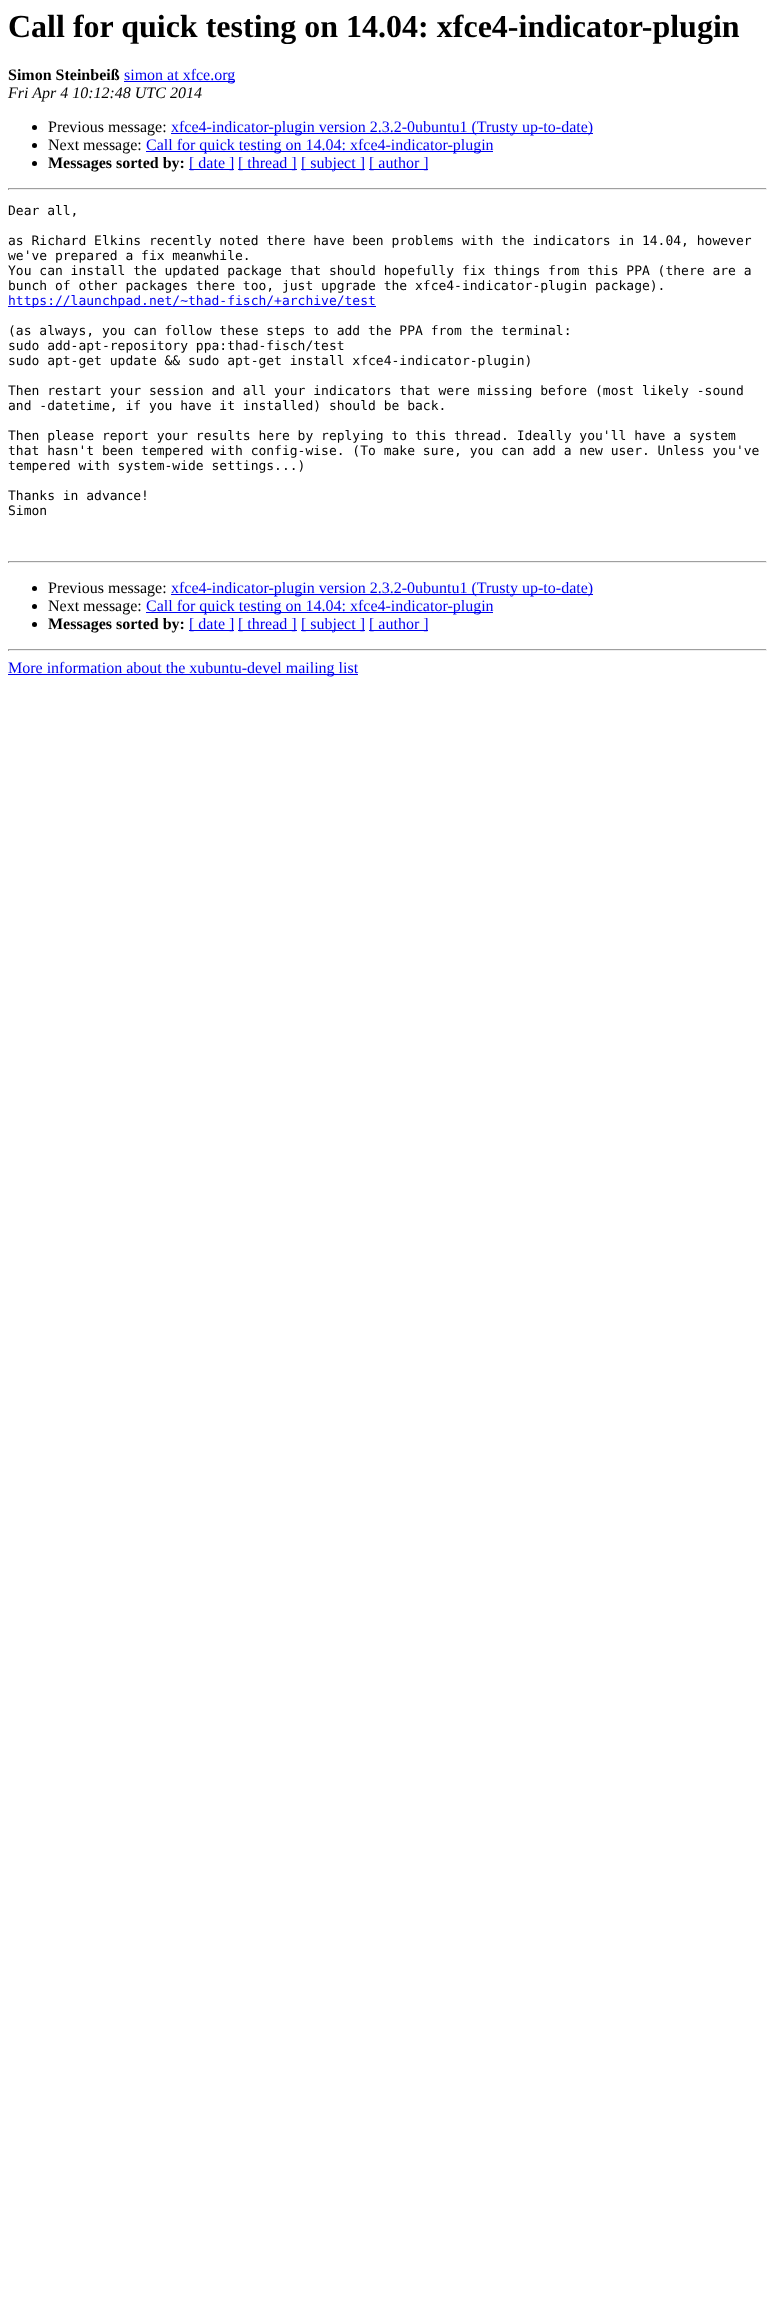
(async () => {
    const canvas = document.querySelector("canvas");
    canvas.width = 775;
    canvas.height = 2314;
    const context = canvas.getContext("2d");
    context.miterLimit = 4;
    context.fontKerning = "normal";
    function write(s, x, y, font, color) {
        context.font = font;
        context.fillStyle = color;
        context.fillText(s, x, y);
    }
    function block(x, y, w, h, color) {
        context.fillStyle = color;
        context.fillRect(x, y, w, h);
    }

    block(0, 0, 775, 2314, "rgb(255, 255, 255)");
    write("Call for quick testing on 14.04: xfce4-indicator-plugin", 8, 37, "bold 32px Liberation Serif", "rgb(0, 0, 0)");
    write("Simon Steinbeiß", 8, 80, "bold 16px Liberation Serif", "rgb(0, 0, 0)");
    block(124, 81, 111, 1, "rgb(0, 0, 238)");
    write("simon at xfce.org", 124, 80, "16px Liberation Serif", "rgb(0, 0, 238)");
    write("Fri Apr 4 10:12:48 UTC 2014", 8, 98, "italic 16px Liberation Serif", "rgb(0, 0, 0)");
    context.beginPath();
    context.arc(34.5, 127.5, 2.5, 0, Math.PI * 2);
    context.fill();
    write("Previous message:", 48, 132, "16px Liberation Serif", "rgb(0, 0, 0)");
    block(171, 133, 422, 1, "rgb(0, 0, 238)");
    write("xfce4-indicator-plugin version 2.3.2-0ubuntu1 (Trusty up-to-date)", 171, 132, "16px Liberation Serif", "rgb(0, 0, 238)");
    context.fillStyle = "rgb(0, 0, 0)";
    context.beginPath();
    context.arc(34.5, 145.5, 2.5, 0, Math.PI * 2);
    context.fill();
    write("Next message:", 48, 150, "16px Liberation Serif", "rgb(0, 0, 0)");
    block(146, 151, 347, 1, "rgb(0, 0, 238)");
    write("Call for quick testing on 14.04: xfce4-indicator-plugin", 146, 150, "16px Liberation Serif", "rgb(0, 0, 238)");
    context.fillStyle = "rgb(0, 0, 0)";
    context.beginPath();
    context.arc(34.5, 163.5, 2.5, 0, Math.PI * 2);
    context.fill();
    write("Messages sorted by:", 48, 168, "bold 16px Liberation Serif", "rgb(0, 0, 0)");
    block(189, 169, 45, 1, "rgb(0, 0, 238)");
    write("[ date ]", 189, 168, "16px Liberation Serif", "rgb(0, 0, 238)");
    block(238, 169, 59, 1, "rgb(0, 0, 238)");
    write("[ thread ]", 238, 168, "16px Liberation Serif", "rgb(0, 0, 238)");
    block(301, 169, 64, 1, "rgb(0, 0, 238)");
    write("[ subject ]", 301, 168, "16px Liberation Serif", "rgb(0, 0, 238)");
    block(369, 169, 59, 1, "rgb(0, 0, 238)");
    write("[ author ]", 369, 168, "16px Liberation Serif", "rgb(0, 0, 238)");
    block(8, 188, 759, 1, "rgb(159, 159, 159)");
    block(766, 188, 1, 2, "rgb(238, 238, 238)");
    block(8, 189, 759, 1, "rgb(238, 238, 238)");
    block(8, 188, 1, 2, "rgb(159, 159, 159)");
    write("Dear all,", 8, 215, "13px DejaVu Sans Mono", "rgb(0, 0, 0)");
    write("as Richard Elkins recently noted there have been problems with the indicators in 14.04, however", 8, 245, "13px DejaVu Sans Mono", "rgb(0, 0, 0)");
    write("we've prepared a fix meanwhile.", 8, 260, "13px DejaVu Sans Mono", "rgb(0, 0, 0)");
    write("You can install the updated package that should hopefully fix things from this PPA (there are a", 8, 275, "13px DejaVu Sans Mono", "rgb(0, 0, 0)");
    write("bunch of other packages there too, just upgrade the xfce4-indicator-plugin package).", 8, 290, "13px DejaVu Sans Mono", "rgb(0, 0, 0)");
    block(8, 306, 368, 1, "rgb(0, 0, 238)");
    write("https://launchpad.net/~thad-fisch/+archive/test", 8, 305, "13px DejaVu Sans Mono", "rgb(0, 0, 238)");
    write("(as always, you can follow these steps to add the PPA from the terminal:", 8, 335, "13px DejaVu Sans Mono", "rgb(0, 0, 0)");
    write("sudo add-apt-repository ppa:thad-fisch/test", 8, 350, "13px DejaVu Sans Mono", "rgb(0, 0, 0)");
    write("sudo apt-get update && sudo apt-get install xfce4-indicator-plugin)", 8, 365, "13px DejaVu Sans Mono", "rgb(0, 0, 0)");
    write("Then restart your session and all your indicators that were missing before (most likely -sound", 8, 395, "13px DejaVu Sans Mono", "rgb(0, 0, 0)");
    write("and -datetime, if you have it installed) should be back.", 8, 410, "13px DejaVu Sans Mono", "rgb(0, 0, 0)");
    write("Then please report your results here by replying to this thread. Ideally you'll have a system", 8, 440, "13px DejaVu Sans Mono", "rgb(0, 0, 0)");
    write("that hasn't been tempered with config-wise. (To make sure, you can add a new user. Unless you've", 8, 455, "13px DejaVu Sans Mono", "rgb(0, 0, 0)");
    write("tempered with system-wide settings...)", 8, 470, "13px DejaVu Sans Mono", "rgb(0, 0, 0)");
    write("Thanks in advance!", 8, 500, "13px DejaVu Sans Mono", "rgb(0, 0, 0)");
    write("Simon", 8, 515, "13px DejaVu Sans Mono", "rgb(0, 0, 0)");
    block(8, 561, 759, 1, "rgb(159, 159, 159)");
    block(766, 561, 1, 2, "rgb(238, 238, 238)");
    block(8, 562, 759, 1, "rgb(238, 238, 238)");
    block(8, 561, 1, 2, "rgb(159, 159, 159)");
    context.fillStyle = "rgb(0, 0, 0)";
    context.beginPath();
    context.arc(34.5, 588.5, 2.5, 0, Math.PI * 2);
    context.fill();
    write("Previous message:", 48, 593, "16px Liberation Serif", "rgb(0, 0, 0)");
    block(171, 594, 422, 1, "rgb(0, 0, 238)");
    write("xfce4-indicator-plugin version 2.3.2-0ubuntu1 (Trusty up-to-date)", 171, 593, "16px Liberation Serif", "rgb(0, 0, 238)");
    context.fillStyle = "rgb(0, 0, 0)";
    context.beginPath();
    context.arc(34.5, 606.5, 2.5, 0, Math.PI * 2);
    context.fill();
    write("Next message:", 48, 611, "16px Liberation Serif", "rgb(0, 0, 0)");
    block(146, 612, 347, 1, "rgb(0, 0, 238)");
    write("Call for quick testing on 14.04: xfce4-indicator-plugin", 146, 611, "16px Liberation Serif", "rgb(0, 0, 238)");
    context.fillStyle = "rgb(0, 0, 0)";
    context.beginPath();
    context.arc(34.5, 624.5, 2.5, 0, Math.PI * 2);
    context.fill();
    write("Messages sorted by:", 48, 629, "bold 16px Liberation Serif", "rgb(0, 0, 0)");
    block(189, 630, 45, 1, "rgb(0, 0, 238)");
    write("[ date ]", 189, 629, "16px Liberation Serif", "rgb(0, 0, 238)");
    block(238, 630, 59, 1, "rgb(0, 0, 238)");
    write("[ thread ]", 238, 629, "16px Liberation Serif", "rgb(0, 0, 238)");
    block(301, 630, 64, 1, "rgb(0, 0, 238)");
    write("[ subject ]", 301, 629, "16px Liberation Serif", "rgb(0, 0, 238)");
    block(369, 630, 59, 1, "rgb(0, 0, 238)");
    write("[ author ]", 369, 629, "16px Liberation Serif", "rgb(0, 0, 238)");
    block(8, 649, 759, 1, "rgb(159, 159, 159)");
    block(766, 649, 1, 2, "rgb(238, 238, 238)");
    block(8, 650, 759, 1, "rgb(238, 238, 238)");
    block(8, 649, 1, 2, "rgb(159, 159, 159)");
    block(8, 674, 350, 1, "rgb(0, 0, 238)");
    write("More information about the xubuntu-devel mailing list", 8, 673, "16px Liberation Serif", "rgb(0, 0, 238)");
})();
